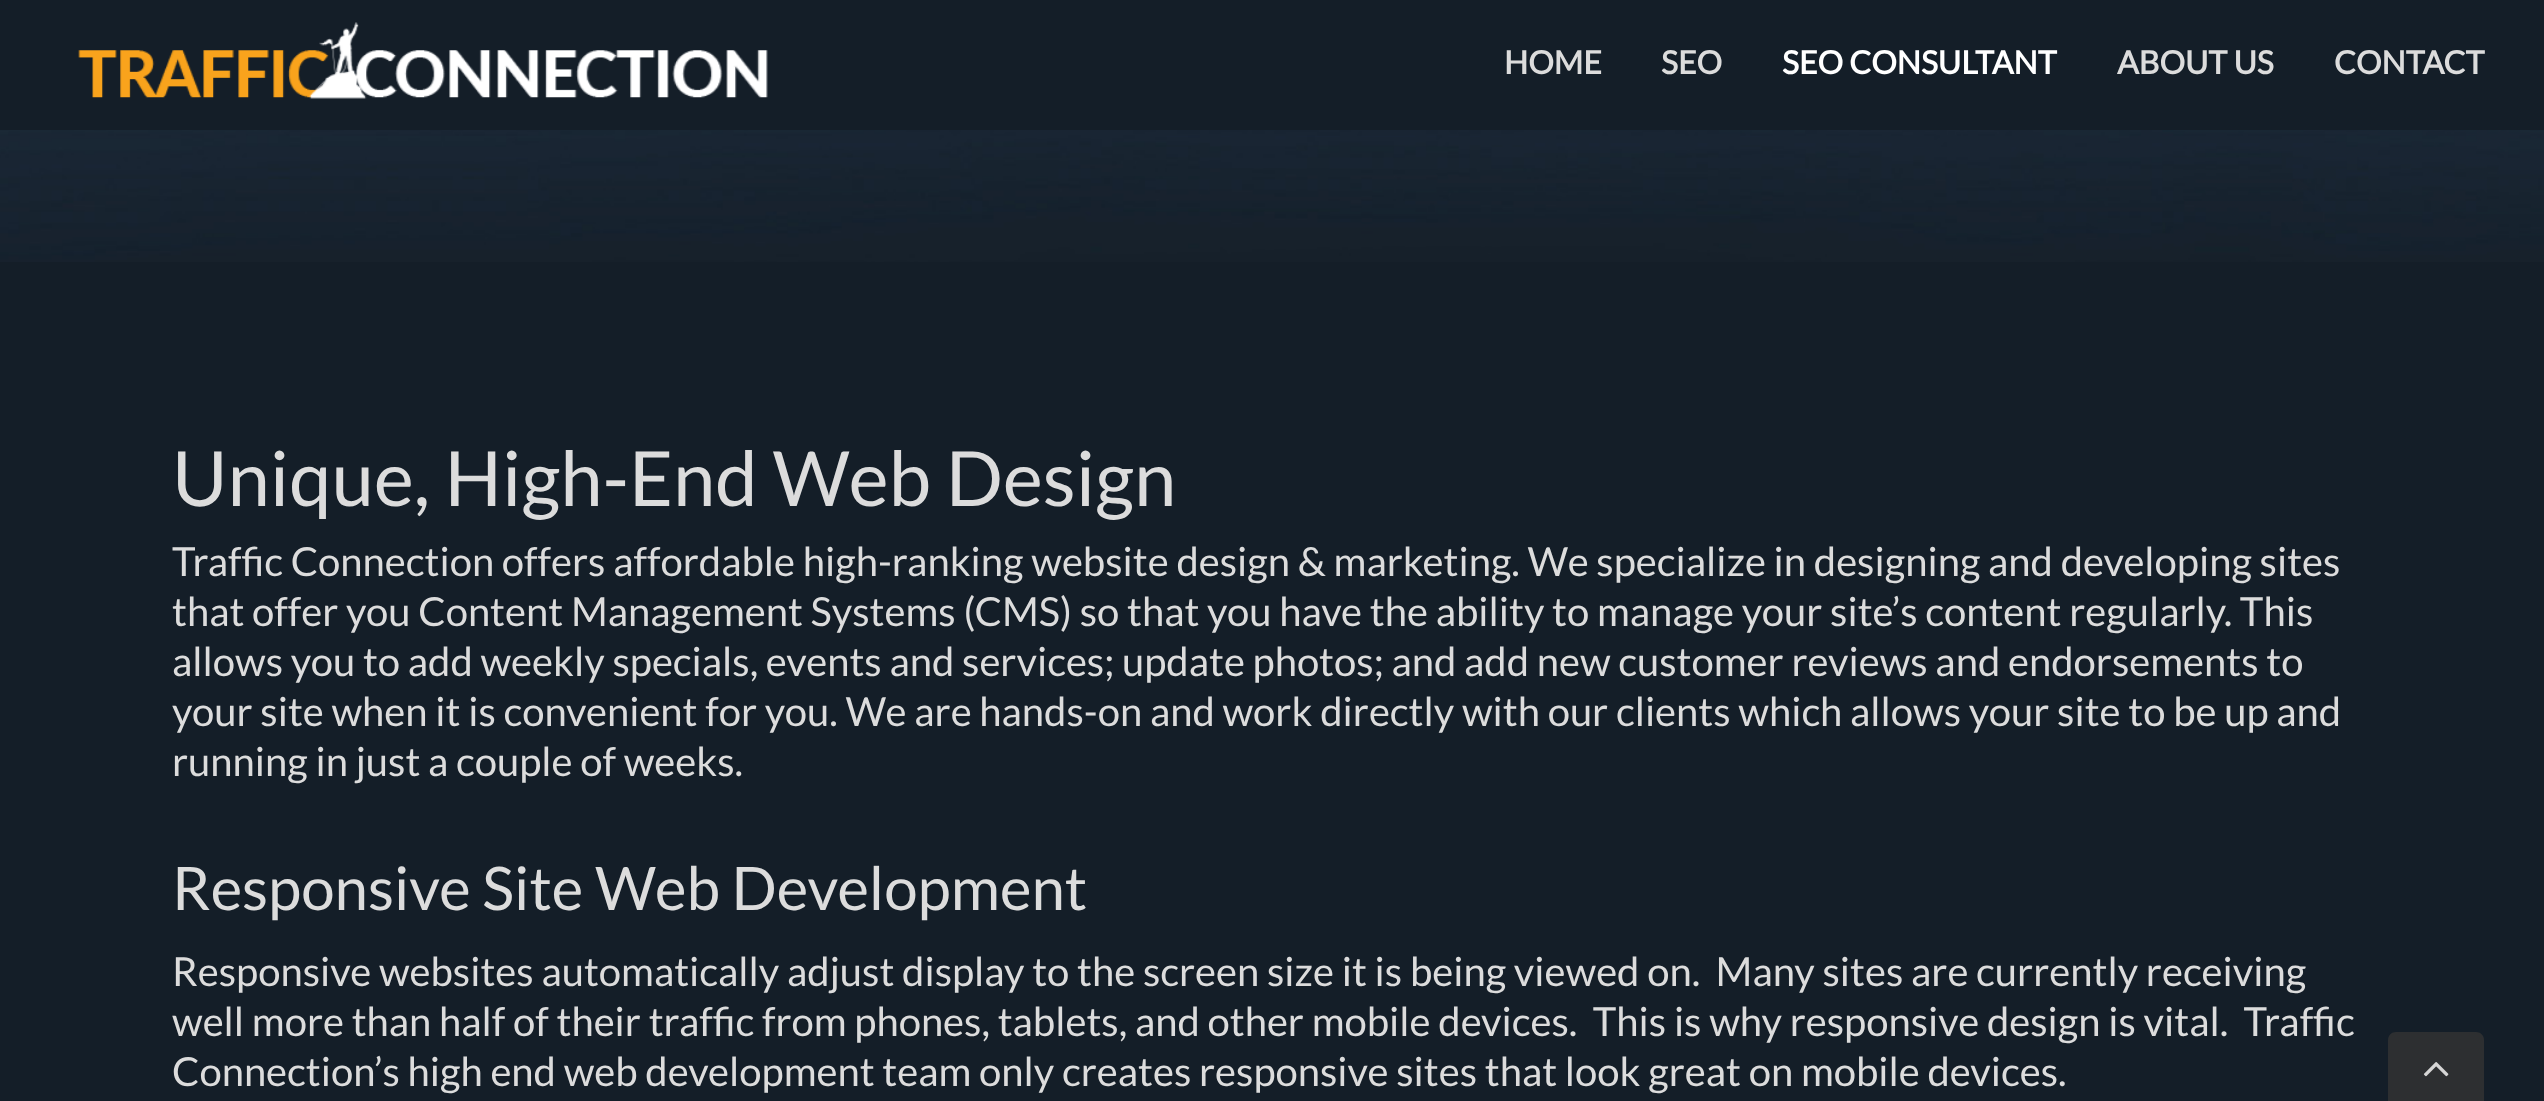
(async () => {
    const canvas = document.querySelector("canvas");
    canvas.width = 2544;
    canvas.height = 1101;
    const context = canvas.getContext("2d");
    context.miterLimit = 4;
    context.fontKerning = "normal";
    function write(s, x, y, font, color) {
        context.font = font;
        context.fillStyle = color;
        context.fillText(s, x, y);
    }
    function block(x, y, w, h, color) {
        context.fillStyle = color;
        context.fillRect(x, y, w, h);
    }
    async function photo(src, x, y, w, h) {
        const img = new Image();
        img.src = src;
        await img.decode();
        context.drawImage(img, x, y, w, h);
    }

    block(0, 0, 2544, 1101, "rgb(20, 30, 40)");
    await photo("media/1.png", 78, 22, 690, 77);
    write("HOME", 1504, 74, "bold 32px Lato", "rgb(220, 220, 220)");
    write("SEO", 1661, 74, "bold 32px Lato", "rgb(220, 220, 220)");
    write("SEO CONSULTANT", 1782, 74, "bold 32px Lato", "rgb(255, 255, 255)");
    write("ABOUT US", 2117, 74, "bold 32px Lato", "rgb(220, 220, 220)");
    write("CONTACT", 2334, 74, "bold 32px Lato", "rgb(220, 220, 220)");
    await photo("media/2.png", 0, 130, 2544, 132);
    write("Unique, High-End Web Design", 172, 506, "76px Lato", "rgb(220, 220, 220)");
    write("Traffic Connection offers affordable high-ranking website design & marketing. We specialize in designing and developing sites", 172, 576, "40px Lato", "rgb(220, 220, 220)");
    write("that offer you Content Management Systems (CMS) so that you have the ability to manage your site’s content regularly. This", 172, 626, "40px Lato", "rgb(220, 220, 220)");
    write("allows you to add weekly specials, events and services; update photos; and add new customer reviews and endorsements to", 172, 676, "40px Lato", "rgb(220, 220, 220)");
    write("your site when it is convenient for you. We are hands-on and work directly with our clients which allows your site to be up and", 172, 726, "40px Lato", "rgb(220, 220, 220)");
    write("running in just a couple of weeks.", 172, 776, "40px Lato", "rgb(220, 220, 220)");
    write("Responsive Site Web Development", 172, 910, "60px Lato", "rgb(220, 220, 220)");
    write("Responsive websites automatically adjust display to the screen size it is being viewed on.  Many sites are currently receiving", 172, 986, "40px Lato", "rgb(220, 220, 220)");
    write("well more than half of their traffic from phones, tablets, and other mobile devices.  This is why responsive design is vital.  Traffic", 172, 1036, "40px Lato", "rgb(220, 220, 220)");
    write("Connection’s high end web development team only creates responsive sites that look great on mobile devices.", 172, 1086, "40px Lato", "rgb(220, 220, 220)");
    context.fillStyle = "rgb(45, 47, 49)";
    context.beginPath();
    context.moveTo(2396, 1032);
    context.lineTo(2476, 1032);
    context.bezierCurveTo(2480.5, 1032, 2484, 1035.5, 2484, 1040);
    context.lineTo(2484, 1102);
    context.lineTo(2388, 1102);
    context.lineTo(2388, 1040);
    context.bezierCurveTo(2388, 1035.5, 2391.5, 1032, 2396, 1032);
    context.closePath();
    context.fill();
    await photo("media/3.png", 2423, 1062, 26, 15);
})();
